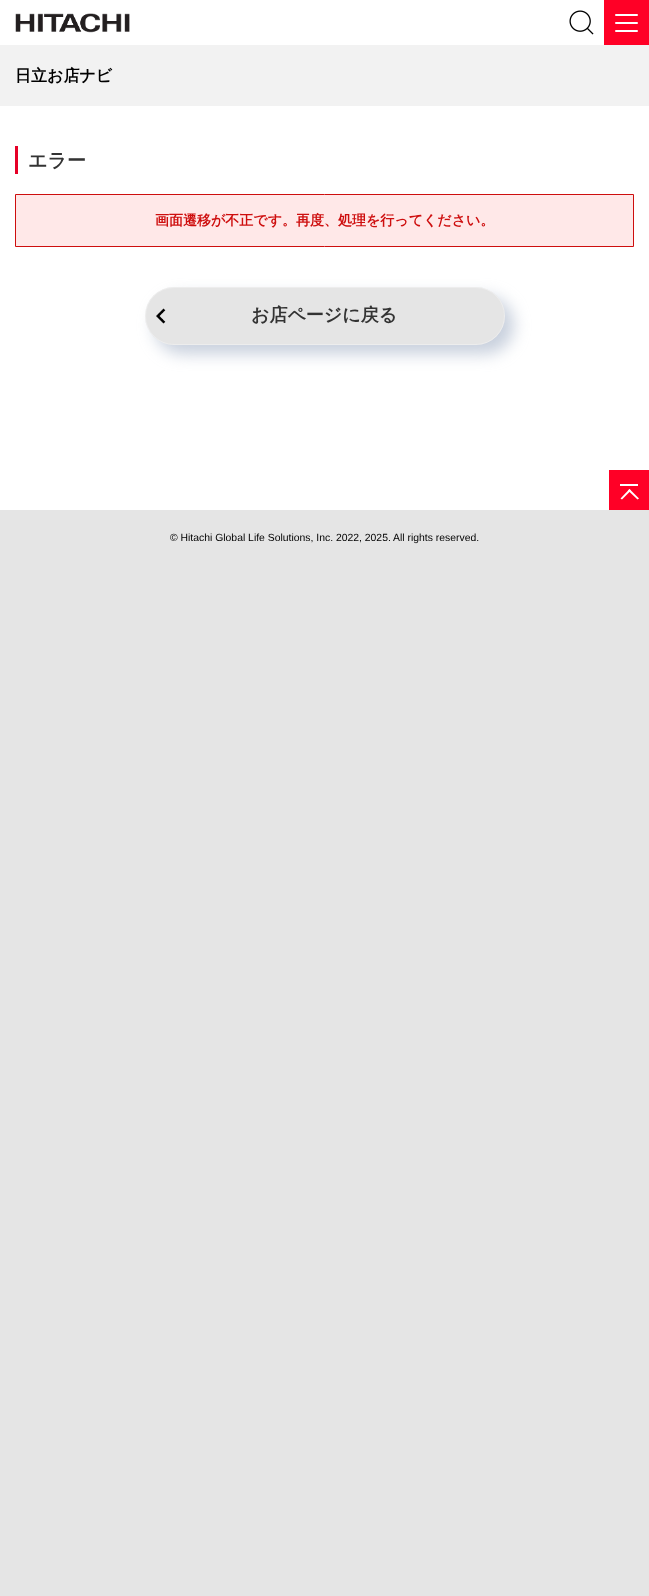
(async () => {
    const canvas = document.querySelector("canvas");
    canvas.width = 649;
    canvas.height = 1596;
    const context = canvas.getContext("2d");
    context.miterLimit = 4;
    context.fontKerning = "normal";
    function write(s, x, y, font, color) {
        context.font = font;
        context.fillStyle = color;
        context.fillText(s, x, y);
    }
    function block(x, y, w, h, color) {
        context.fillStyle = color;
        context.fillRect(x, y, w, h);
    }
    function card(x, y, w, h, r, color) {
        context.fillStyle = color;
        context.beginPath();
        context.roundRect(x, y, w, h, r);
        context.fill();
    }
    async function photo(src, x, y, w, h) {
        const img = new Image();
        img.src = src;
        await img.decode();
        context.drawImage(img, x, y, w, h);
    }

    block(0, 0, 649, 1596, "rgb(229, 229, 229)");
    block(0, 0, 604, 45, "rgb(255, 255, 255)");
    await photo("media/1.png", 15, 13, 115, 20);
    await photo("media/2.png", 569, 10, 25, 25);
    block(604, 0, 45, 45, "rgb(255, 0, 38)");
    card(615, 14, 23, 2, 1, "rgb(255, 255, 255)");
    card(615, 22, 23, 2, 1, "rgb(255, 255, 255)");
    card(615, 30, 23, 2, 1, "rgb(255, 255, 255)");
    block(0, 45, 649, 61, "rgb(242, 242, 242)");
    write("日立お店ナビ", 15, 81, "bold 16px WenQuanYi Zen Hei", "rgb(0, 0, 0)");
    block(0, 106, 649, 404, "rgb(255, 255, 255)");
    block(15, 146, 3, 28, "rgb(230, 0, 39)");
    write("エラー", 28, 167, "bold 19px WenQuanYi Zen Hei", "rgb(51, 51, 51)");
    context.fillStyle = "rgb(255, 232, 232)";
    context.beginPath();
    context.rect(15.5, 194.5, 618, 52);
    context.fill();
    context.strokeStyle = "rgb(206, 14, 14)";
    context.stroke();
    write("画面遷移が不正です。再度、処理を行ってください。", 155, 225, "bold 14px WenQuanYi Zen Hei", "rgb(206, 14, 14)");
    context.fillStyle = "rgba(163, 177, 198, 0.6)";
    context.filter = "blur(8px)";
    context.beginPath();
    context.roundRect(154, 296, 360, 58, 29);
    context.fill();
    context.filter = "none";
    card(145, 287, 360, 58, 29, "rgb(229, 229, 229)");
    await photo("media/3.png", 156, 308, 10, 16);
    context.beginPath();
    context.roundRect(145.5, 287.5, 359, 57, 28.5);
    context.strokeStyle = "rgba(255, 255, 255, 0.3)";
    context.stroke();
    write("お店ページに戻る", 251, 321, "bold 18px WenQuanYi Zen Hei", "rgb(51, 51, 51)");
    block(609, 470, 40, 40, "rgb(255, 0, 38)");
    block(620, 484, 18, 2, "rgb(255, 255, 255)");
    context.beginPath();
    context.moveTo(620.5, 498.5);
    context.lineTo(629.5, 489);
    context.lineTo(631, 490.5);
    context.lineTo(622, 499.5);
    context.closePath();
    context.fill();
    context.beginPath();
    context.moveTo(628, 490.5);
    context.lineTo(629.5, 489);
    context.lineTo(639, 498.5);
    context.lineTo(637.5, 499.5);
    context.closePath();
    context.fill();
    write("© Hitachi Global Life Solutions, Inc. 2022, 2025. All rights reserved.", 170, 541, "10.4px Liberation Sans", "rgb(0, 0, 0)");
})();
